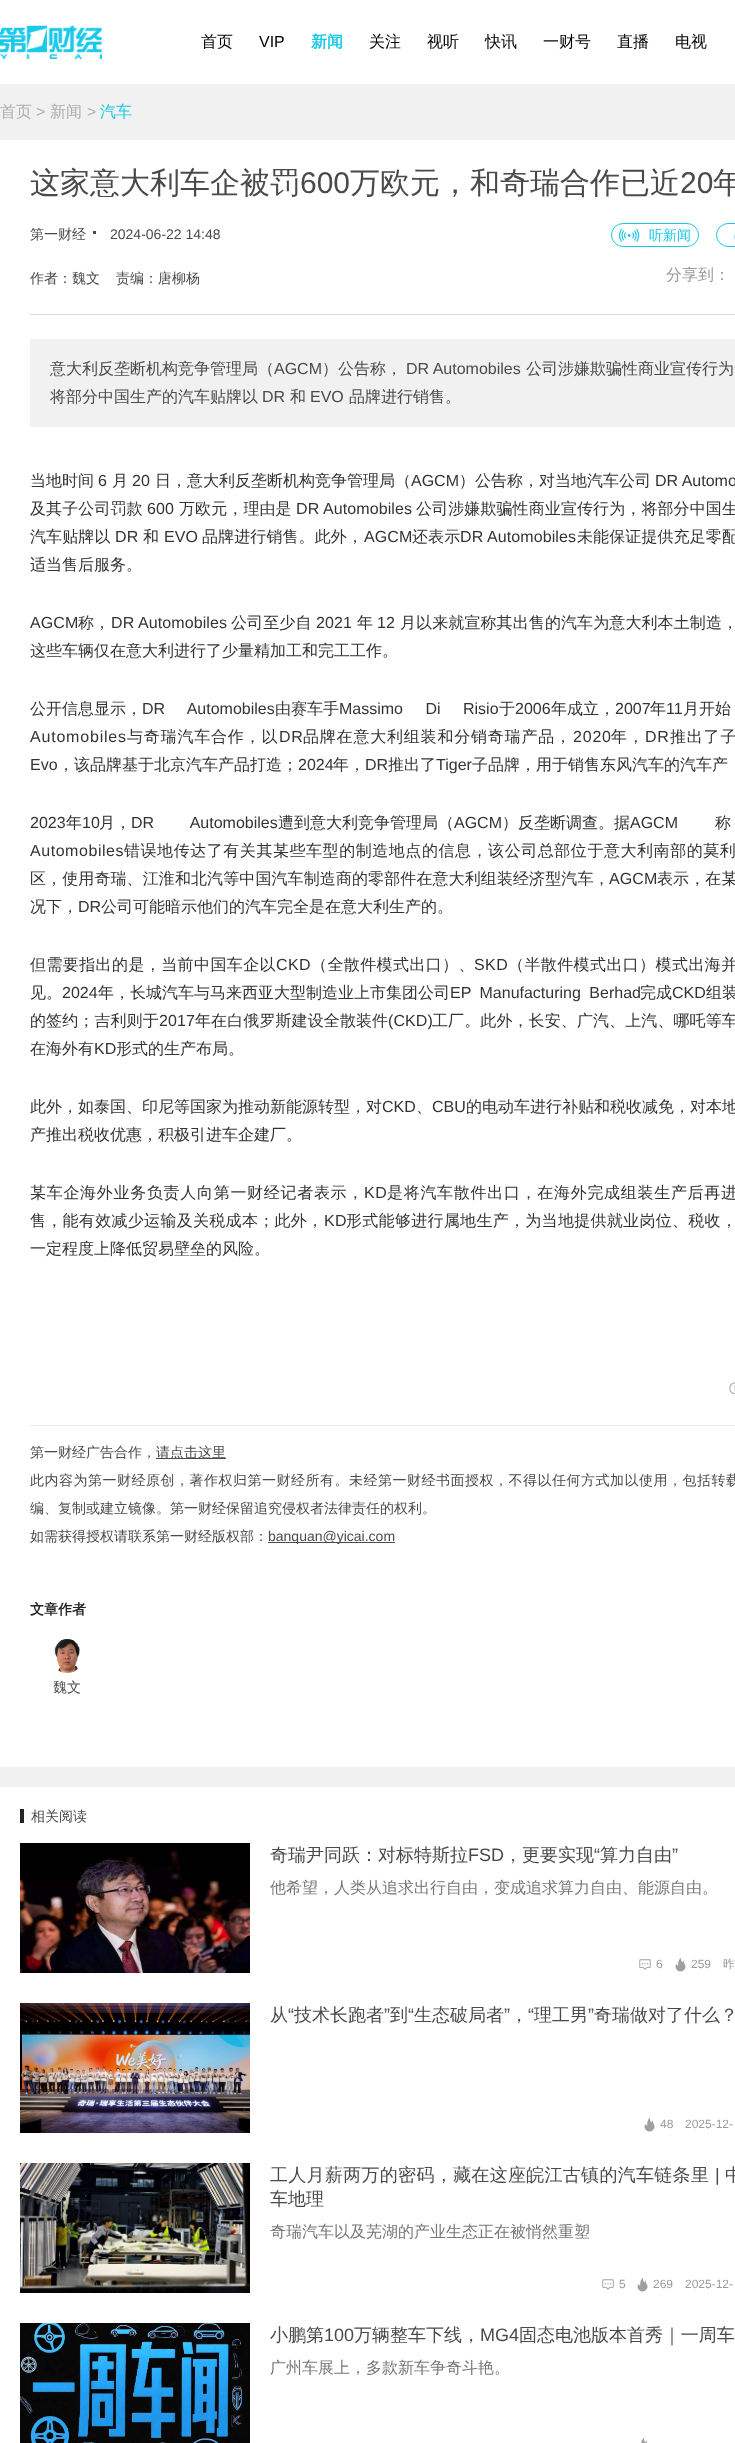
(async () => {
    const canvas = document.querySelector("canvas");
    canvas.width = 735;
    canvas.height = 2443;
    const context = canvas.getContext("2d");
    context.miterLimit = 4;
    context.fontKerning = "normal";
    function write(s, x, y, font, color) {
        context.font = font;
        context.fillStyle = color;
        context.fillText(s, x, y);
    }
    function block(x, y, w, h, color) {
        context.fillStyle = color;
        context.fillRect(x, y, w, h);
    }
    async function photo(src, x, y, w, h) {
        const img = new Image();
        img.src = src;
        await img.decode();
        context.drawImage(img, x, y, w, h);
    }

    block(0, 0, 735, 2443, "rgb(241, 241, 241)");
    block(0, 0, 735, 84, "rgb(255, 255, 255)");
    await photo("media/1.png", 0, 25, 102, 34);
    write("首页", 201, 47, "500 16px WenQuanYi Zen Hei", "rgb(0, 0, 0)");
    write("VIP", 259, 47, "16px Liberation Sans", "rgb(0, 0, 0)");
    write("新闻", 311, 47, "bold 16px WenQuanYi Zen Hei", "rgb(26, 201, 233)");
    write("关注", 369, 47, "500 16px WenQuanYi Zen Hei", "rgb(0, 0, 0)");
    write("视听", 427, 47, "500 16px WenQuanYi Zen Hei", "rgb(0, 0, 0)");
    write("快讯", 485, 47, "500 16px WenQuanYi Zen Hei", "rgb(0, 0, 0)");
    write("一财号", 543, 47, "500 16px WenQuanYi Zen Hei", "rgb(0, 0, 0)");
    write("直播", 617, 47, "500 16px WenQuanYi Zen Hei", "rgb(0, 0, 0)");
    write("电视", 675, 47, "500 16px WenQuanYi Zen Hei", "rgb(0, 0, 0)");
    write("首页", 0, 117, "500 16px WenQuanYi Zen Hei", "rgb(174, 174, 174)");
    write(">", 36, 117, "16px Liberation Sans", "rgb(174, 174, 174)");
    write("新闻", 50, 117, "500 16px WenQuanYi Zen Hei", "rgb(174, 174, 174)");
    write(">", 87, 117, "16px Liberation Sans", "rgb(174, 174, 174)");
    write("汽车", 100, 117, "500 16px WenQuanYi Zen Hei", "rgb(26, 201, 233)");
    block(0, 140, 735, 1627, "rgb(255, 255, 255)");
    block(30, 314, 705, 1, "rgb(216, 216, 216)");
    write("这家意大利车企被罚", 30, 193, "500 30px WenQuanYi Zen Hei", "rgb(74, 74, 74)");
    write("600", 300, 193, "30px Liberation Sans", "rgb(74, 74, 74)");
    write("万欧元，和奇瑞合作已近", 350, 193, "500 30px WenQuanYi Zen Hei", "rgb(74, 74, 74)");
    write("20", 680, 193, "30px Liberation Sans", "rgb(74, 74, 74)");
    write("年", 713, 193, "500 30px WenQuanYi Zen Hei", "rgb(74, 74, 74)");
    block(93, 231, 3, 3, "rgb(74, 74, 74)");
    write("第一财经", 30, 239, "500 14px WenQuanYi Zen Hei", "rgb(74, 74, 74)");
    write("2024-06-22 14:48", 110, 239, "14px Liberation Sans", "rgb(74, 74, 74)");
    await photo("media/2.png", 619, 229, 21, 13);
    context.beginPath();
    context.roundRect(611.5, 223.5, 87, 23, 11.5);
    context.strokeStyle = "rgb(26, 201, 233)";
    context.stroke();
    write("听新闻", 649, 240, "500 14px WenQuanYi Zen Hei", "rgb(26, 201, 233)");
    context.beginPath();
    context.roundRect(716.5, 223.5, 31, 23, 11.5);
    context.stroke();
    await photo("media/3.png", 734, 234, 1, 6);
    write("作者：魏文", 30, 283, "500 14px WenQuanYi Zen Hei", "rgb(74, 74, 74)");
    write("责编：唐柳杨", 116, 283, "500 14px WenQuanYi Zen Hei", "rgb(74, 74, 74)");
    write("分享到：", 666, 280, "500 16px WenQuanYi Zen Hei", "rgb(155, 155, 155)");
    block(30, 339, 705, 88, "rgb(241, 241, 241)");
    write("意大利反垄断机构竞争管理局（", 50, 374, "500 16px WenQuanYi Zen Hei", "rgb(74, 74, 74)");
    write("AGCM", 274, 374, "16px Liberation Sans", "rgb(74, 74, 74)");
    write("）公告称，", 322, 374, "500 16px WenQuanYi Zen Hei", "rgb(74, 74, 74)");
    write("DR Automobiles", 406, 374, "16px Liberation Sans", "rgb(74, 74, 74)");
    write("公司涉嫌欺骗性商业宣传行为", 526, 374, "500 16px WenQuanYi Zen Hei", "rgb(74, 74, 74)");
    write("将部分中国生产的汽车贴牌以", 50, 402, "500 16px WenQuanYi Zen Hei", "rgb(74, 74, 74)");
    write("DR", 262, 402, "16px Liberation Sans", "rgb(74, 74, 74)");
    write("和", 290, 402, "500 16px WenQuanYi Zen Hei", "rgb(74, 74, 74)");
    write("EVO", 310, 402, "16px Liberation Sans", "rgb(74, 74, 74)");
    write("品牌进行销售。", 349, 402, "500 16px WenQuanYi Zen Hei", "rgb(74, 74, 74)");
    write("当地时间", 30, 486, "500 16px WenQuanYi Zen Hei", "rgb(51, 51, 51)");
    write("6", 98, 486, "16px Liberation Sans", "rgb(51, 51, 51)");
    write("月", 112, 486, "500 16px WenQuanYi Zen Hei", "rgb(51, 51, 51)");
    write("20", 132, 486, "16px Liberation Sans", "rgb(51, 51, 51)");
    write("日，意大利反垄断机构竞争管理局（", 155, 486, "500 16px WenQuanYi Zen Hei", "rgb(51, 51, 51)");
    write("AGCM", 411, 486, "16px Liberation Sans", "rgb(51, 51, 51)");
    write("）公告称，对当地汽车公司", 459, 486, "500 16px WenQuanYi Zen Hei", "rgb(51, 51, 51)");
    write("DR Automo", 655, 486, "16px Liberation Sans", "rgb(51, 51, 51)");
    context.letterSpacing = "0.1px";
    write("及其子公司罚款", 30, 514, "500 16px WenQuanYi Zen Hei", "rgb(51, 51, 51)");
    write("600", 147, 514, "16px Liberation Sans", "rgb(51, 51, 51)");
    write("万欧元，理由是", 179, 514, "500 16px WenQuanYi Zen Hei", "rgb(51, 51, 51)");
    write("DR Automobiles", 296, 514, "16px Liberation Sans", "rgb(51, 51, 51)");
    write("公司涉嫌欺骗性商业宣传行为，将部分中国生", 416, 514, "500 16px WenQuanYi Zen Hei", "rgb(51, 51, 51)");
    write("汽车贴牌以", 30, 542, "500 16px WenQuanYi Zen Hei", "rgb(51, 51, 51)");
    write("DR", 115, 542, "16px Liberation Sans", "rgb(51, 51, 51)");
    write("和", 143, 542, "500 16px WenQuanYi Zen Hei", "rgb(51, 51, 51)");
    write("EVO", 164, 542, "16px Liberation Sans", "rgb(51, 51, 51)");
    write("品牌进行销售。此外，", 202, 542, "500 16px WenQuanYi Zen Hei", "rgb(51, 51, 51)");
    write("AGCM", 364, 542, "16px Liberation Sans", "rgb(51, 51, 51)");
    write("还表示", 412, 542, "500 16px WenQuanYi Zen Hei", "rgb(51, 51, 51)");
    write("DR Automobiles", 460, 542, "16px Liberation Sans", "rgb(51, 51, 51)");
    write("未能保证提供充足零配", 577, 542, "500 16px WenQuanYi Zen Hei", "rgb(51, 51, 51)");
    context.letterSpacing = "0px";
    write("适当售后服务。", 30, 570, "500 16px WenQuanYi Zen Hei", "rgb(51, 51, 51)");
    context.letterSpacing = "0.1px";
    write("AGCM", 30, 628, "16px Liberation Sans", "rgb(51, 51, 51)");
    write("称，", 78, 628, "500 16px WenQuanYi Zen Hei", "rgb(51, 51, 51)");
    write("DR Automobiles", 111, 628, "16px Liberation Sans", "rgb(51, 51, 51)");
    write("公司至少自", 231, 628, "500 16px WenQuanYi Zen Hei", "rgb(51, 51, 51)");
    write("2021", 316, 628, "16px Liberation Sans", "rgb(51, 51, 51)");
    write("年", 357, 628, "500 16px WenQuanYi Zen Hei", "rgb(51, 51, 51)");
    write("12", 377, 628, "16px Liberation Sans", "rgb(51, 51, 51)");
    write("月以来就宣称其出售的汽车为意大利本土制造，", 400, 628, "500 16px WenQuanYi Zen Hei", "rgb(51, 51, 51)");
    context.letterSpacing = "0px";
    write("这些车辆仅在意大利进行了少量精加工和完工工作。", 30, 656, "500 16px WenQuanYi Zen Hei", "rgb(51, 51, 51)");
    write("公开信息显示，", 30, 714, "500 16px WenQuanYi Zen Hei", "rgb(51, 51, 51)");
    context.wordSpacing = "18px";
    write("DR Automobiles", 142, 714, "16px Liberation Sans", "rgb(51, 51, 51)");
    context.wordSpacing = "0px";
    write("由赛车手", 275, 714, "500 16px WenQuanYi Zen Hei", "rgb(51, 51, 51)");
    context.wordSpacing = "18px";
    write("Massimo Di Risio", 339, 714, "16px Liberation Sans", "rgb(51, 51, 51)");
    context.wordSpacing = "0px";
    write("于", 499, 714, "500 16px WenQuanYi Zen Hei", "rgb(51, 51, 51)");
    write("2006", 515, 714, "16px Liberation Sans", "rgb(51, 51, 51)");
    write("年成立，", 551, 714, "500 16px WenQuanYi Zen Hei", "rgb(51, 51, 51)");
    write("2007", 615, 714, "16px Liberation Sans", "rgb(51, 51, 51)");
    write("年", 650, 714, "500 16px WenQuanYi Zen Hei", "rgb(51, 51, 51)");
    write("11", 666, 714, "16px Liberation Sans", "rgb(51, 51, 51)");
    write("月开始", 683, 714, "500 16px WenQuanYi Zen Hei", "rgb(51, 51, 51)");
    context.letterSpacing = "0.8px";
    write("Automobiles", 30, 742, "16px Liberation Sans", "rgb(51, 51, 51)");
    write("与奇瑞汽车合作，以", 127, 742, "500 16px WenQuanYi Zen Hei", "rgb(51, 51, 51)");
    write("DR", 279, 742, "16px Liberation Sans", "rgb(51, 51, 51)");
    write("品牌在意大利组装和分销奇瑞产品，", 303, 742, "500 16px WenQuanYi Zen Hei", "rgb(51, 51, 51)");
    write("2020", 573, 742, "16px Liberation Sans", "rgb(51, 51, 51)");
    write("年，", 611, 742, "500 16px WenQuanYi Zen Hei", "rgb(51, 51, 51)");
    write("DR", 645, 742, "16px Liberation Sans", "rgb(51, 51, 51)");
    write("推出了子", 670, 742, "500 16px WenQuanYi Zen Hei", "rgb(51, 51, 51)");
    context.letterSpacing = "0px";
    write("Evo", 30, 770, "16px Liberation Sans", "rgb(51, 51, 51)");
    write("，该品牌基于北京汽车产品打造；", 58, 770, "500 16px WenQuanYi Zen Hei", "rgb(51, 51, 51)");
    write("2024", 298, 770, "16px Liberation Sans", "rgb(51, 51, 51)");
    write("年，", 333, 770, "500 16px WenQuanYi Zen Hei", "rgb(51, 51, 51)");
    write("DR", 365, 770, "16px Liberation Sans", "rgb(51, 51, 51)");
    write("推出了", 388, 770, "500 16px WenQuanYi Zen Hei", "rgb(51, 51, 51)");
    write("Tiger", 436, 770, "16px Liberation Sans", "rgb(51, 51, 51)");
    write("子品牌，用于销售东风汽车的汽车产", 472, 770, "500 16px WenQuanYi Zen Hei", "rgb(51, 51, 51)");
    write("2023", 30, 828, "16px Liberation Sans", "rgb(51, 51, 51)");
    write("年", 66, 828, "500 16px WenQuanYi Zen Hei", "rgb(51, 51, 51)");
    write("10", 82, 828, "16px Liberation Sans", "rgb(51, 51, 51)");
    write("月，", 99, 828, "500 16px WenQuanYi Zen Hei", "rgb(51, 51, 51)");
    context.wordSpacing = "32px";
    write("DR Automobiles", 131, 828, "16px Liberation Sans", "rgb(51, 51, 51)");
    context.wordSpacing = "0px";
    write("遭到意大利竞争管理局（", 278, 828, "500 16px WenQuanYi Zen Hei", "rgb(51, 51, 51)");
    write("AGCM", 454, 828, "16px Liberation Sans", "rgb(51, 51, 51)");
    write("）反垄断调查。据", 502, 828, "500 16px WenQuanYi Zen Hei", "rgb(51, 51, 51)");
    write("AGCM", 630, 828, "16px Liberation Sans", "rgb(51, 51, 51)");
    write("称", 715, 828, "500 16px WenQuanYi Zen Hei", "rgb(51, 51, 51)");
    context.letterSpacing = "0.55px";
    write("Automobiles", 30, 856, "16px Liberation Sans", "rgb(51, 51, 51)");
    write("错误地传达了有关其某些车型的制造地点的信息，该公司总部位于意大利南部的莫利", 124, 856, "500 16px WenQuanYi Zen Hei", "rgb(51, 51, 51)");
    context.letterSpacing = "0.1px";
    write("区，使用奇瑞、江淮和北汽等中国汽车制造商的零部件在意大利组装经济型汽车，", 30, 884, "500 16px WenQuanYi Zen Hei", "rgb(51, 51, 51)");
    write("AGCM", 609, 884, "16px Liberation Sans", "rgb(51, 51, 51)");
    write("表示，在某", 657, 884, "500 16px WenQuanYi Zen Hei", "rgb(51, 51, 51)");
    context.letterSpacing = "0px";
    write("况下，", 30, 912, "500 16px WenQuanYi Zen Hei", "rgb(51, 51, 51)");
    write("DR", 78, 912, "16px Liberation Sans", "rgb(51, 51, 51)");
    write("公司可能暗示他们的汽车完全是在意大利生产的。", 101, 912, "500 16px WenQuanYi Zen Hei", "rgb(51, 51, 51)");
    context.letterSpacing = "0.4px";
    write("但需要指出的是，当前中国车企以", 30, 970, "500 16px WenQuanYi Zen Hei", "rgb(51, 51, 51)");
    write("CKD", 276, 970, "16px Liberation Sans", "rgb(51, 51, 51)");
    write("（全散件模式出口）、", 311, 970, "500 16px WenQuanYi Zen Hei", "rgb(51, 51, 51)");
    write("SKD", 474, 970, "16px Liberation Sans", "rgb(51, 51, 51)");
    write("（半散件模式出口）模式出海并", 508, 970, "500 16px WenQuanYi Zen Hei", "rgb(51, 51, 51)");
    context.letterSpacing = "0px";
    write("见。", 30, 998, "500 16px WenQuanYi Zen Hei", "rgb(51, 51, 51)");
    write("2024", 62, 998, "16px Liberation Sans", "rgb(51, 51, 51)");
    write("年，长城汽车与马来西亚大型制造业上市集团公司", 98, 998, "500 16px WenQuanYi Zen Hei", "rgb(51, 51, 51)");
    context.wordSpacing = "4px";
    write("EP Manufacturing Berhad", 450, 998, "16px Liberation Sans", "rgb(51, 51, 51)");
    context.wordSpacing = "0px";
    write("完成", 640, 998, "500 16px WenQuanYi Zen Hei", "rgb(51, 51, 51)");
    write("CKD", 672, 998, "16px Liberation Sans", "rgb(51, 51, 51)");
    write("组装", 706, 998, "500 16px WenQuanYi Zen Hei", "rgb(51, 51, 51)");
    context.letterSpacing = "0.1px";
    write("的签约；吉利则于", 30, 1026, "500 16px WenQuanYi Zen Hei", "rgb(51, 51, 51)");
    write("2017", 159, 1026, "16px Liberation Sans", "rgb(51, 51, 51)");
    write("年在白俄罗斯建设全散装件", 195, 1026, "500 16px WenQuanYi Zen Hei", "rgb(51, 51, 51)");
    write("(CKD)", 388, 1026, "16px Liberation Sans", "rgb(51, 51, 51)");
    write("工厂。此外，长安、广汽、上汽、哪吒等车", 432, 1026, "500 16px WenQuanYi Zen Hei", "rgb(51, 51, 51)");
    context.letterSpacing = "0px";
    write("在海外有", 30, 1054, "500 16px WenQuanYi Zen Hei", "rgb(51, 51, 51)");
    write("KD", 94, 1054, "16px Liberation Sans", "rgb(51, 51, 51)");
    write("形式的生产布局。", 116, 1054, "500 16px WenQuanYi Zen Hei", "rgb(51, 51, 51)");
    write("此外，如泰国、印尼等国家为推动新能源转型，对", 30, 1112, "500 16px WenQuanYi Zen Hei", "rgb(51, 51, 51)");
    write("CKD", 382, 1112, "16px Liberation Sans", "rgb(51, 51, 51)");
    write("、", 416, 1112, "500 16px WenQuanYi Zen Hei", "rgb(51, 51, 51)");
    write("CBU", 432, 1112, "16px Liberation Sans", "rgb(51, 51, 51)");
    write("的电动车进行补贴和税收减免，对本地", 466, 1112, "500 16px WenQuanYi Zen Hei", "rgb(51, 51, 51)");
    write("产推出税收优惠，积极引进车企建厂。", 30, 1140, "500 16px WenQuanYi Zen Hei", "rgb(51, 51, 51)");
    context.letterSpacing = "0.7px";
    write("某车企海外业务负责人向第一财经记者表示，", 30, 1198, "500 16px WenQuanYi Zen Hei", "rgb(51, 51, 51)");
    write("KD", 364, 1198, "16px Liberation Sans", "rgb(51, 51, 51)");
    write("是将汽车散件出口，在海外完成组装生产后再进", 387, 1198, "500 16px WenQuanYi Zen Hei", "rgb(51, 51, 51)");
    context.letterSpacing = "0.3px";
    write("售，能有效减少运输及关税成本；此外，", 30, 1226, "500 16px WenQuanYi Zen Hei", "rgb(51, 51, 51)");
    write("KD", 324, 1226, "16px Liberation Sans", "rgb(51, 51, 51)");
    write("形式能够进行属地生产，为当地提供就业岗位、税收，", 346, 1226, "500 16px WenQuanYi Zen Hei", "rgb(51, 51, 51)");
    context.letterSpacing = "0px";
    write("一定程度上降低贸易壁垒的风险。", 30, 1254, "500 16px WenQuanYi Zen Hei", "rgb(51, 51, 51)");
    await photo("media/4.png", 729, 1382, 6, 12);
    block(30, 1425, 705, 1, "rgb(235, 235, 235)");
    write("第一财经广告合作，", 30, 1457, "500 14px WenQuanYi Zen Hei", "rgb(74, 74, 74)");
    block(156, 1458, 70, 1, "rgb(74, 74, 74)");
    write("请点击这里", 156, 1457, "500 14px WenQuanYi Zen Hei", "rgb(74, 74, 74)");
    context.letterSpacing = "0.5px";
    write("此内容为第一财经原创，著作权归第一财经所有。未经第一财经书面授权，不得以任何方式加以使用，包括转载", 30, 1485, "500 14px WenQuanYi Zen Hei", "rgb(74, 74, 74)");
    context.letterSpacing = "0px";
    write("编、复制或建立镜像。第一财经保留追究侵权者法律责任的权利。", 30, 1513, "500 14px WenQuanYi Zen Hei", "rgb(74, 74, 74)");
    write("如需获得授权请联系第一财经版权部：", 30, 1541, "500 14px WenQuanYi Zen Hei", "rgb(74, 74, 74)");
    block(268, 1542, 127, 1, "rgb(74, 74, 74)");
    write("banquan@yicai.com", 268, 1541, "14px Liberation Sans", "rgb(74, 74, 74)");
    write("文章作者", 30, 1614, "bold 14px WenQuanYi Zen Hei", "rgb(38, 38, 38)");
    await photo("media/5.png", 54, 1639, 26, 34);
    write("魏文", 53, 1692, "500 14px WenQuanYi Zen Hei", "rgb(74, 74, 74)");
    block(0, 1787, 735, 656, "rgb(255, 255, 255)");
    block(20, 1809, 4, 14, "rgb(38, 38, 38)");
    write("相关阅读", 31, 1821, "500 14px WenQuanYi Zen Hei", "rgb(74, 74, 74)");
    await photo("media/6.png", 20, 1843, 230, 130);
    write("奇瑞尹同跃：对标特斯拉", 270, 1861, "500 18px WenQuanYi Zen Hei", "rgb(74, 74, 74)");
    write("FSD", 468, 1861, "18px Liberation Sans", "rgb(74, 74, 74)");
    write("，更要实现", 504, 1861, "500 18px WenQuanYi Zen Hei", "rgb(74, 74, 74)");
    write("“", 594, 1861, "18px Liberation Sans", "rgb(74, 74, 74)");
    write("算力自由", 600, 1861, "500 18px WenQuanYi Zen Hei", "rgb(74, 74, 74)");
    write("”", 672, 1861, "18px Liberation Sans", "rgb(74, 74, 74)");
    write("他希望，人类从追求出行自由，变成追求算力自由、能源自由。", 270, 1893, "500 16px WenQuanYi Zen Hei", "rgb(119, 119, 119)");
    await photo("media/7.png", 639, 1959, 12, 11);
    write("6", 656, 1968, "12px Liberation Sans", "rgb(155, 155, 155)");
    await photo("media/8.png", 675, 1957, 11, 15);
    write("259", 691, 1968, "12px Liberation Sans", "rgb(155, 155, 155)");
    write("昨", 723, 1968, "500 12px WenQuanYi Zen Hei", "rgb(155, 155, 155)");
    await photo("media/9.png", 20, 2003, 230, 130);
    write("从", 270, 2021, "500 18px WenQuanYi Zen Hei", "rgb(74, 74, 74)");
    write("“", 288, 2021, "18px Liberation Sans", "rgb(74, 74, 74)");
    write("技术长跑者", 294, 2021, "500 18px WenQuanYi Zen Hei", "rgb(74, 74, 74)");
    write("”", 384, 2021, "18px Liberation Sans", "rgb(74, 74, 74)");
    write("到", 390, 2021, "500 18px WenQuanYi Zen Hei", "rgb(74, 74, 74)");
    write("“", 408, 2021, "18px Liberation Sans", "rgb(74, 74, 74)");
    write("生态破局者", 414, 2021, "500 18px WenQuanYi Zen Hei", "rgb(74, 74, 74)");
    write("”", 504, 2021, "18px Liberation Sans", "rgb(74, 74, 74)");
    write("“", 528, 2021, "18px Liberation Sans", "rgb(74, 74, 74)");
    write("理工男", 534, 2021, "500 18px WenQuanYi Zen Hei", "rgb(74, 74, 74)");
    write("”", 588, 2021, "18px Liberation Sans", "rgb(74, 74, 74)");
    write("奇瑞做对了什么？", 594, 2021, "500 18px WenQuanYi Zen Hei", "rgb(74, 74, 74)");
    write("，", 510, 2021, "500 18px WenQuanYi Zen Hei", "rgb(74, 74, 74)");
    await photo("media/8.png", 644, 2117, 11, 15);
    write("48", 660, 2128, "12px Liberation Sans", "rgb(155, 155, 155)");
    write("2025-12-", 685, 2128, "12px Liberation Sans", "rgb(155, 155, 155)");
    await photo("media/10.png", 20, 2163, 230, 130);
    context.letterSpacing = "0.3px";
    write("工人月薪两万的密码，藏在这座皖江古镇的汽车链条里", 270, 2181, "500 18px WenQuanYi Zen Hei", "rgb(74, 74, 74)");
    write("|", 715, 2181, "18px Liberation Sans", "rgb(74, 74, 74)");
    write("中", 725, 2181, "500 18px WenQuanYi Zen Hei", "rgb(74, 74, 74)");
    context.letterSpacing = "0px";
    write("车地理", 270, 2205, "500 18px WenQuanYi Zen Hei", "rgb(74, 74, 74)");
    write("奇瑞汽车以及芜湖的产业生态正在被悄然重塑", 270, 2237, "500 16px WenQuanYi Zen Hei", "rgb(119, 119, 119)");
    await photo("media/7.png", 602, 2279, 12, 11);
    write("5", 619, 2288, "12px Liberation Sans", "rgb(155, 155, 155)");
    await photo("media/8.png", 637, 2277, 11, 15);
    write("269", 653, 2288, "12px Liberation Sans", "rgb(155, 155, 155)");
    write("2025-12-", 685, 2288, "12px Liberation Sans", "rgb(155, 155, 155)");
    await photo("media/11.png", 20, 2323, 230, 120);
    write("小鹏第", 270, 2341, "500 18px WenQuanYi Zen Hei", "rgb(74, 74, 74)");
    write("100", 324, 2341, "18px Liberation Sans", "rgb(74, 74, 74)");
    write("万辆整车下线，", 354, 2341, "500 18px WenQuanYi Zen Hei", "rgb(74, 74, 74)");
    write("MG4", 480, 2341, "18px Liberation Sans", "rgb(74, 74, 74)");
    write("固态电池版本首秀｜一周车", 519, 2341, "500 18px WenQuanYi Zen Hei", "rgb(74, 74, 74)");
    write("广州车展上，多款新车争奇斗艳。", 270, 2373, "500 16px WenQuanYi Zen Hei", "rgb(119, 119, 119)");
    await photo("media/12.png", 641, 2437, 7, 6);
})();
